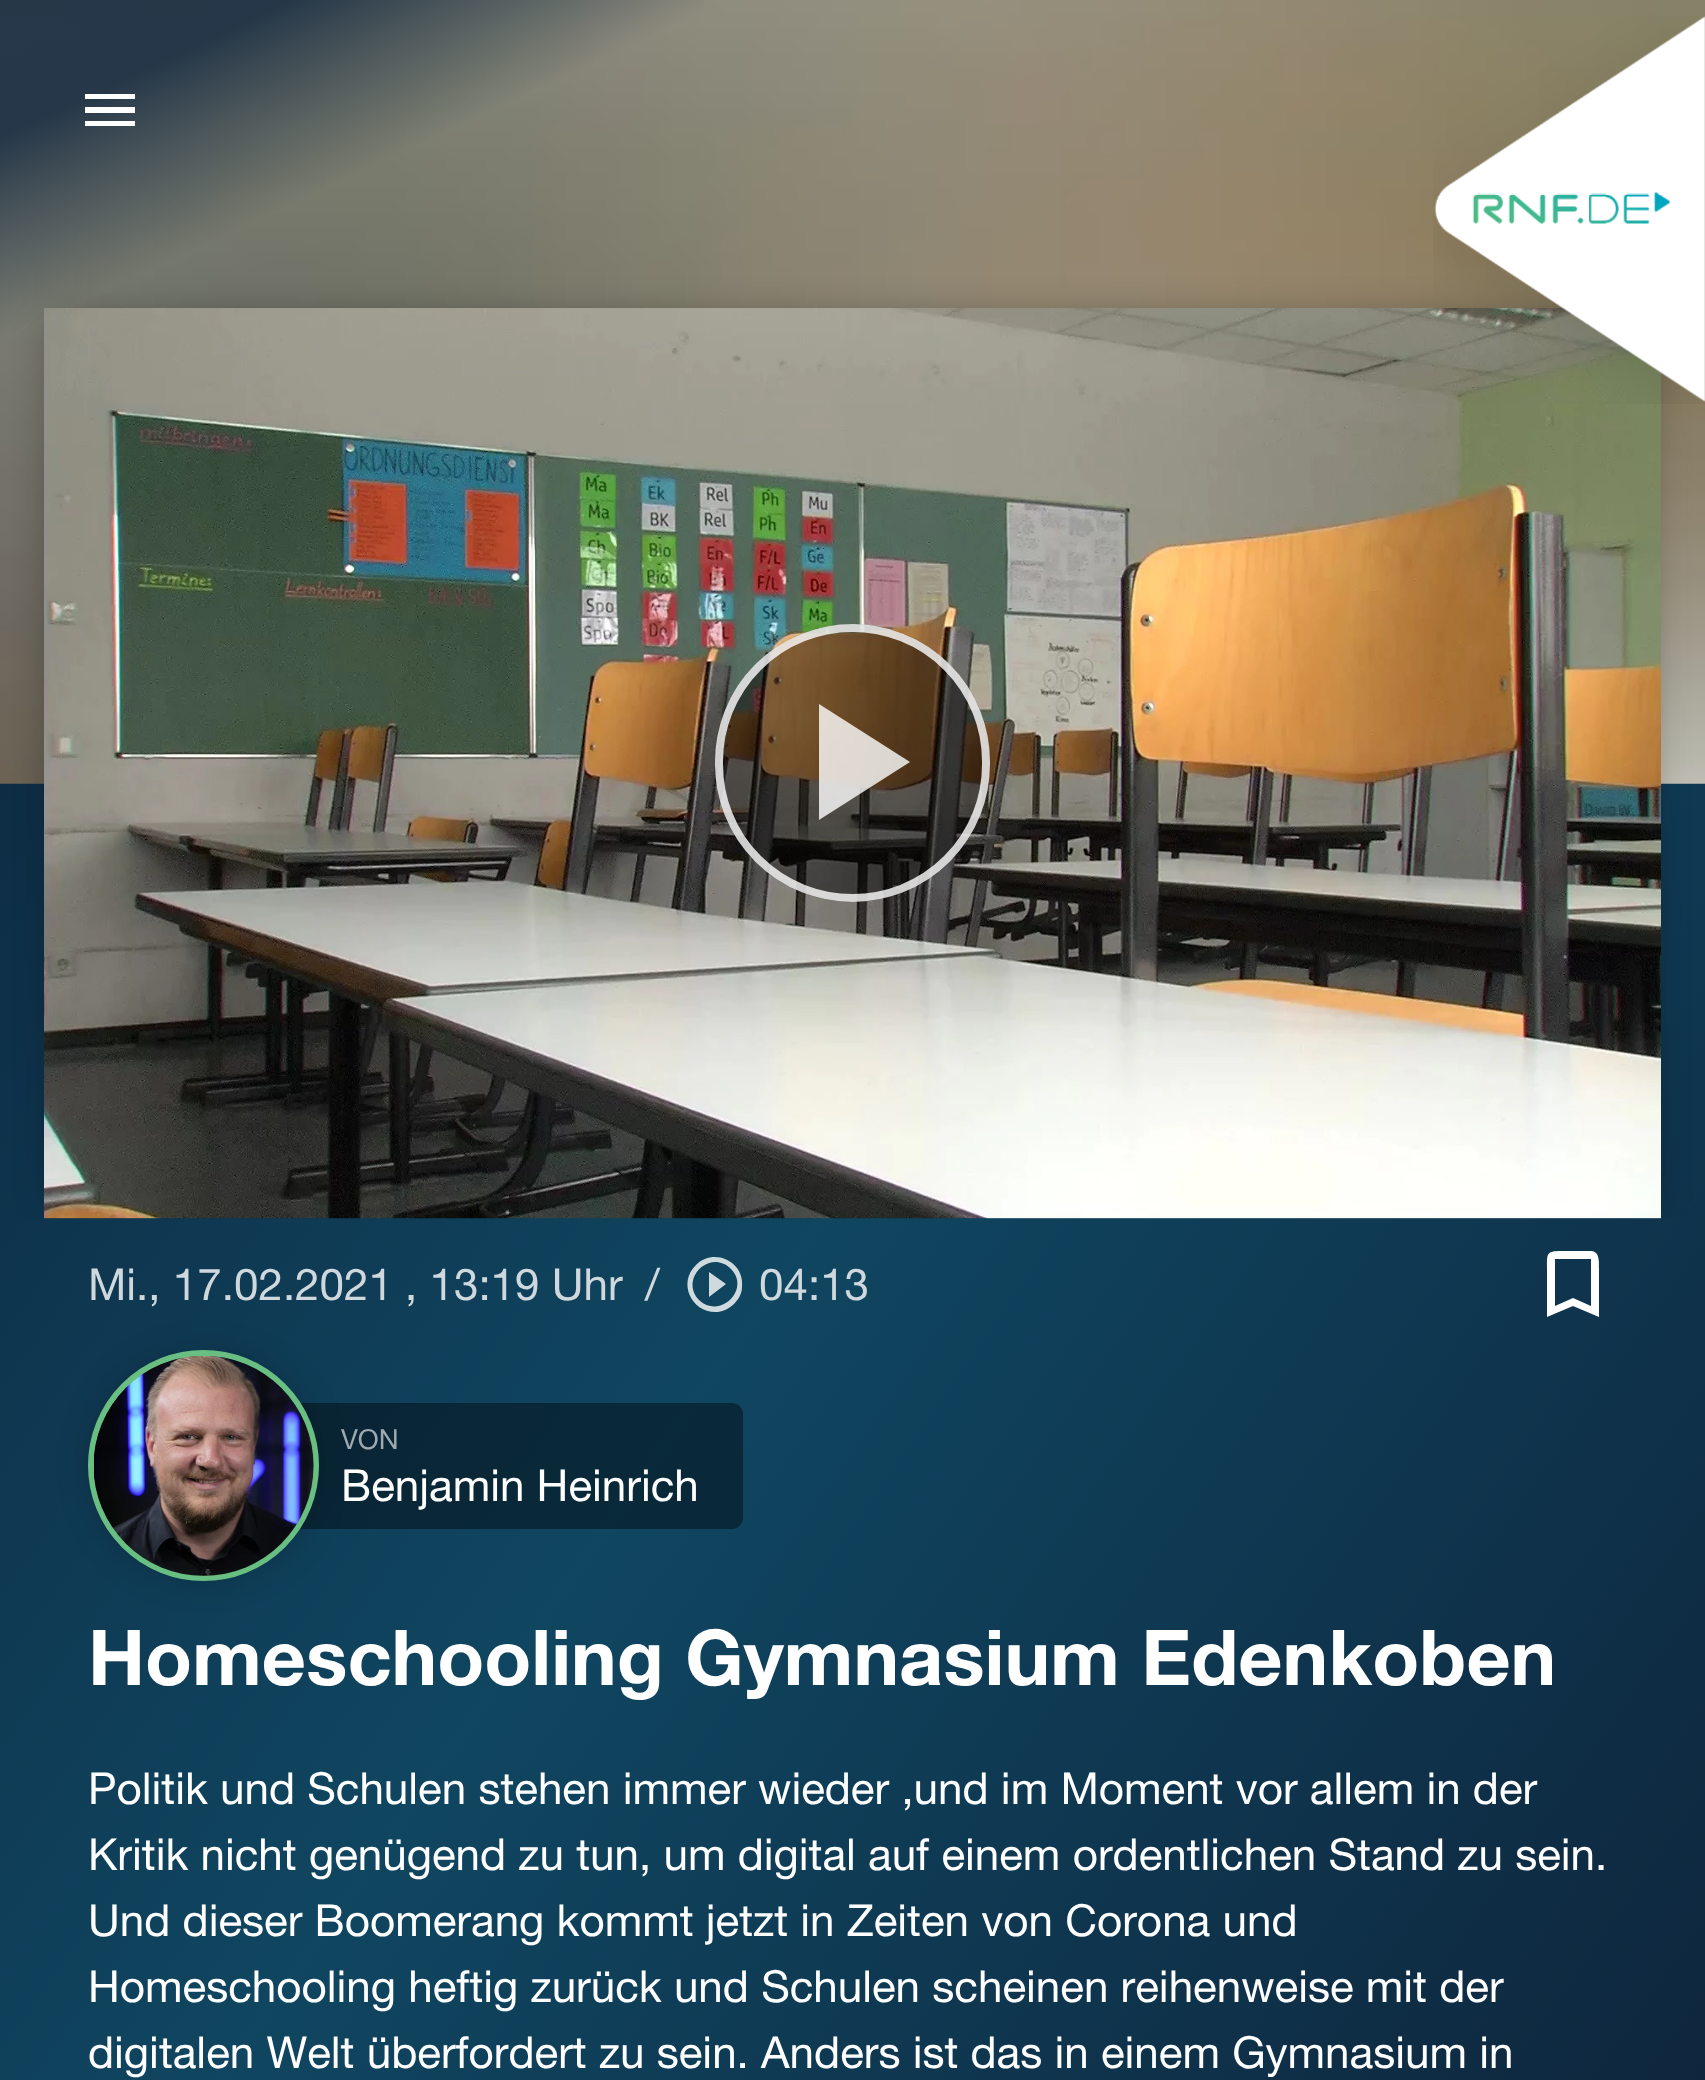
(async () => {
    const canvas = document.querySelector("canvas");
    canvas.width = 1705;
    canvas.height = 2080;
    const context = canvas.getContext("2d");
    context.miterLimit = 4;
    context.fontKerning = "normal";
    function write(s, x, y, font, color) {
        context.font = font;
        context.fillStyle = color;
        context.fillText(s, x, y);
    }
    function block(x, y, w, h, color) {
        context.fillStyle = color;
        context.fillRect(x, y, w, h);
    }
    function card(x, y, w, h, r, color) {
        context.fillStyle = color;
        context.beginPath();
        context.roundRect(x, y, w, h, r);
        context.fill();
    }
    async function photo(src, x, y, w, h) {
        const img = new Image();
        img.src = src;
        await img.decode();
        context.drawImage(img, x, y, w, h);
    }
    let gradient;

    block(0, 0, 1705, 2080, "rgb(255, 255, 255)");
    gradient = context.createLinearGradient(-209, 298, 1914, 1784);
    gradient.addColorStop(0.05, "rgb(13, 40, 60)");
    gradient.addColorStop(0.53, "rgb(20, 150, 183)");
    gradient.addColorStop(1, "rgb(15, 45, 65)");
    context.fillStyle = gradient;
    context.fillRect(0, 783, 1705, 1297);
    block(0, 783, 1705, 435, "rgba(14, 36, 60, 0.7)");
    await photo("media/2.png", 0, 0, 1705, 784);
    block(0, 1218, 1705, 132, "rgba(14, 36, 60, 0.7)");
    context.fillStyle = "rgb(207, 218, 223)";
    context.beginPath();
    context.moveTo(699, 1300);
    context.bezierCurveTo(720, 1320, 751, 1289, 731, 1269);
    context.bezierCurveTo(710, 1248, 679, 1279, 699, 1300);
    context.closePath();
    context.moveTo(696, 1265);
    context.bezierCurveTo(714, 1247, 745, 1262, 742, 1287);
    context.bezierCurveTo(742, 1293, 739, 1299, 734, 1304);
    context.bezierCurveTo(730, 1308, 724, 1311, 718, 1312);
    context.bezierCurveTo(692, 1314, 677, 1283, 696, 1265);
    context.closePath();
    context.moveTo(709, 1297);
    context.lineTo(709, 1272);
    context.lineTo(726, 1284);
    context.closePath();
    context.fill();
    context.fillStyle = "rgb(255, 255, 255)";
    context.beginPath();
    context.moveTo(1591, 1306);
    context.lineTo(1591, 1259);
    context.lineTo(1555, 1259);
    context.lineTo(1555, 1306);
    context.lineTo(1573, 1298);
    context.closePath();
    context.moveTo(1591, 1251);
    context.bezierCurveTo(1600, 1251, 1599, 1263, 1599, 1268);
    context.lineTo(1599, 1317);
    context.lineTo(1573, 1306);
    context.lineTo(1547, 1317);
    context.lineTo(1547, 1268);
    context.bezierCurveTo(1547, 1254, 1546, 1251, 1561, 1251);
    context.closePath();
    context.fill();
    context.save();
    context.beginPath();
    context.rect(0, 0, 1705, 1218);
    context.clip();
    context.fillStyle = "rgba(0, 0, 0, 0.4)";
    context.filter = "blur(20.5px)";
    context.beginPath();
    context.rect(58, 322, 1589, 883);
    context.fill();
    context.filter = "none";
    context.restore();
    await photo("media/3.png", 44, 1218, 1617, 1);
    await photo("media/5.png", 44, 1218, 1617, 1);
    await photo("media/4.png", 44, 308, 1617, 911);
    gradient = context.createLinearGradient(222, -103, 482, 455);
    gradient.addColorStop(0.2, "rgba(14, 36, 60, 0.8)");
    gradient.addColorStop(0.5, "rgba(14, 36, 60, 0)");
    context.fillStyle = gradient;
    context.fillRect(0, 0, 704, 334);
    context.fillStyle = "rgb(255, 255, 255)";
    context.beginPath();
    context.moveTo(85, 94);
    context.lineTo(135, 94);
    context.lineTo(135, 99);
    context.lineTo(85, 99);
    context.closePath();
    context.moveTo(85, 113);
    context.lineTo(85, 107);
    context.lineTo(135, 107);
    context.lineTo(135, 113);
    context.closePath();
    context.moveTo(85, 126);
    context.lineTo(85, 121);
    context.lineTo(135, 121);
    context.lineTo(135, 126);
    context.closePath();
    context.fill();
    await photo("media/1.png", 1433, 16, 272, 388);
    card(715, 624, 275, 278, 137.5, "rgba(0, 0, 0, 0.48)");
    context.beginPath();
    context.roundRect(719, 628, 267, 270, 133.5);
    context.strokeStyle = "rgba(255, 255, 255, 0.8)";
    context.lineWidth = 8;
    context.stroke();
    context.fillStyle = "rgba(255, 255, 255, 0.8)";
    context.beginPath();
    context.moveTo(819, 704);
    context.lineTo(819, 820);
    context.lineTo(910, 762);
    context.closePath();
    context.fill();
    write("Mi., 17.02.2021", 88, 1300, "44px Helvetica Neue", "rgb(207, 216, 221)");
    write(", 13:19 Uhr", 405, 1300, "44px Helvetica Neue", "rgb(207, 216, 221)");
    write("/", 645, 1300, "44px Helvetica Neue", "rgb(207, 216, 221)");
    write("04:13", 759, 1300, "44px Helvetica Neue", "rgb(207, 216, 221)");
    block(0, 1350, 1705, 253, "rgba(14, 36, 60, 0.7)");
    card(231, 1403, 512, 126, 11, "rgba(0, 0, 0, 0.4)");
    block(0, 1603, 1705, 130, "rgba(14, 36, 60, 0.7)");
    context.fillStyle = "rgba(0, 0, 0, 0.4)";
    context.filter = "blur(20.5px)";
    context.beginPath();
    context.roundRect(102, 1364, 203, 204, 101.5);
    context.fill();
    context.filter = "none";
    context.beginPath();
    context.arc(203.5, 1465.5, 112.5, 0, Math.PI * 2);
    context.strokeStyle = "rgb(105, 190, 129)";
    context.lineWidth = 6;
    context.stroke();
    context.fillStyle = "rgba(0, 0, 0, 0.1)";
    context.beginPath();
    context.arc(204, 1466, 110, 0, Math.PI * 2);
    context.fill();
    await photo("media/6.png", 94, 1356, 220, 220);
    write("VON", 341, 1449, "27.5px Helvetica Neue", "rgb(157, 168, 175)");
    write("Benjamin Heinrich", 341, 1501, "44px Helvetica Neue", "rgb(255, 255, 255)");
    write("Homeschooling Gymnasium Edenkoben", 88, 1685, "bold 77px Helvetica Neue", "rgb(255, 255, 255)");
    block(0, 1733, 1705, 347, "rgba(14, 36, 60, 0.7)");
    write("Politik und Schulen stehen immer wieder ,und im Moment vor allem in der", 88, 1804, "44px Helvetica Neue", "rgb(255, 255, 255)");
    write("Kritik nicht genügend zu tun, um digital auf einem ordentlichen Stand zu sein.", 88, 1870, "44px Helvetica Neue", "rgb(255, 255, 255)");
    write("Und dieser Boomerang kommt jetzt in Zeiten von Corona und", 88, 1936, "44px Helvetica Neue", "rgb(255, 255, 255)");
    write("Homeschooling heftig zurück und Schulen scheinen reihenweise mit der", 88, 2002, "44px Helvetica Neue", "rgb(255, 255, 255)");
    write("digitalen Welt überfordert zu sein. Anders ist das in einem Gymnasium in", 88, 2068, "44px Helvetica Neue", "rgb(255, 255, 255)");
})();
